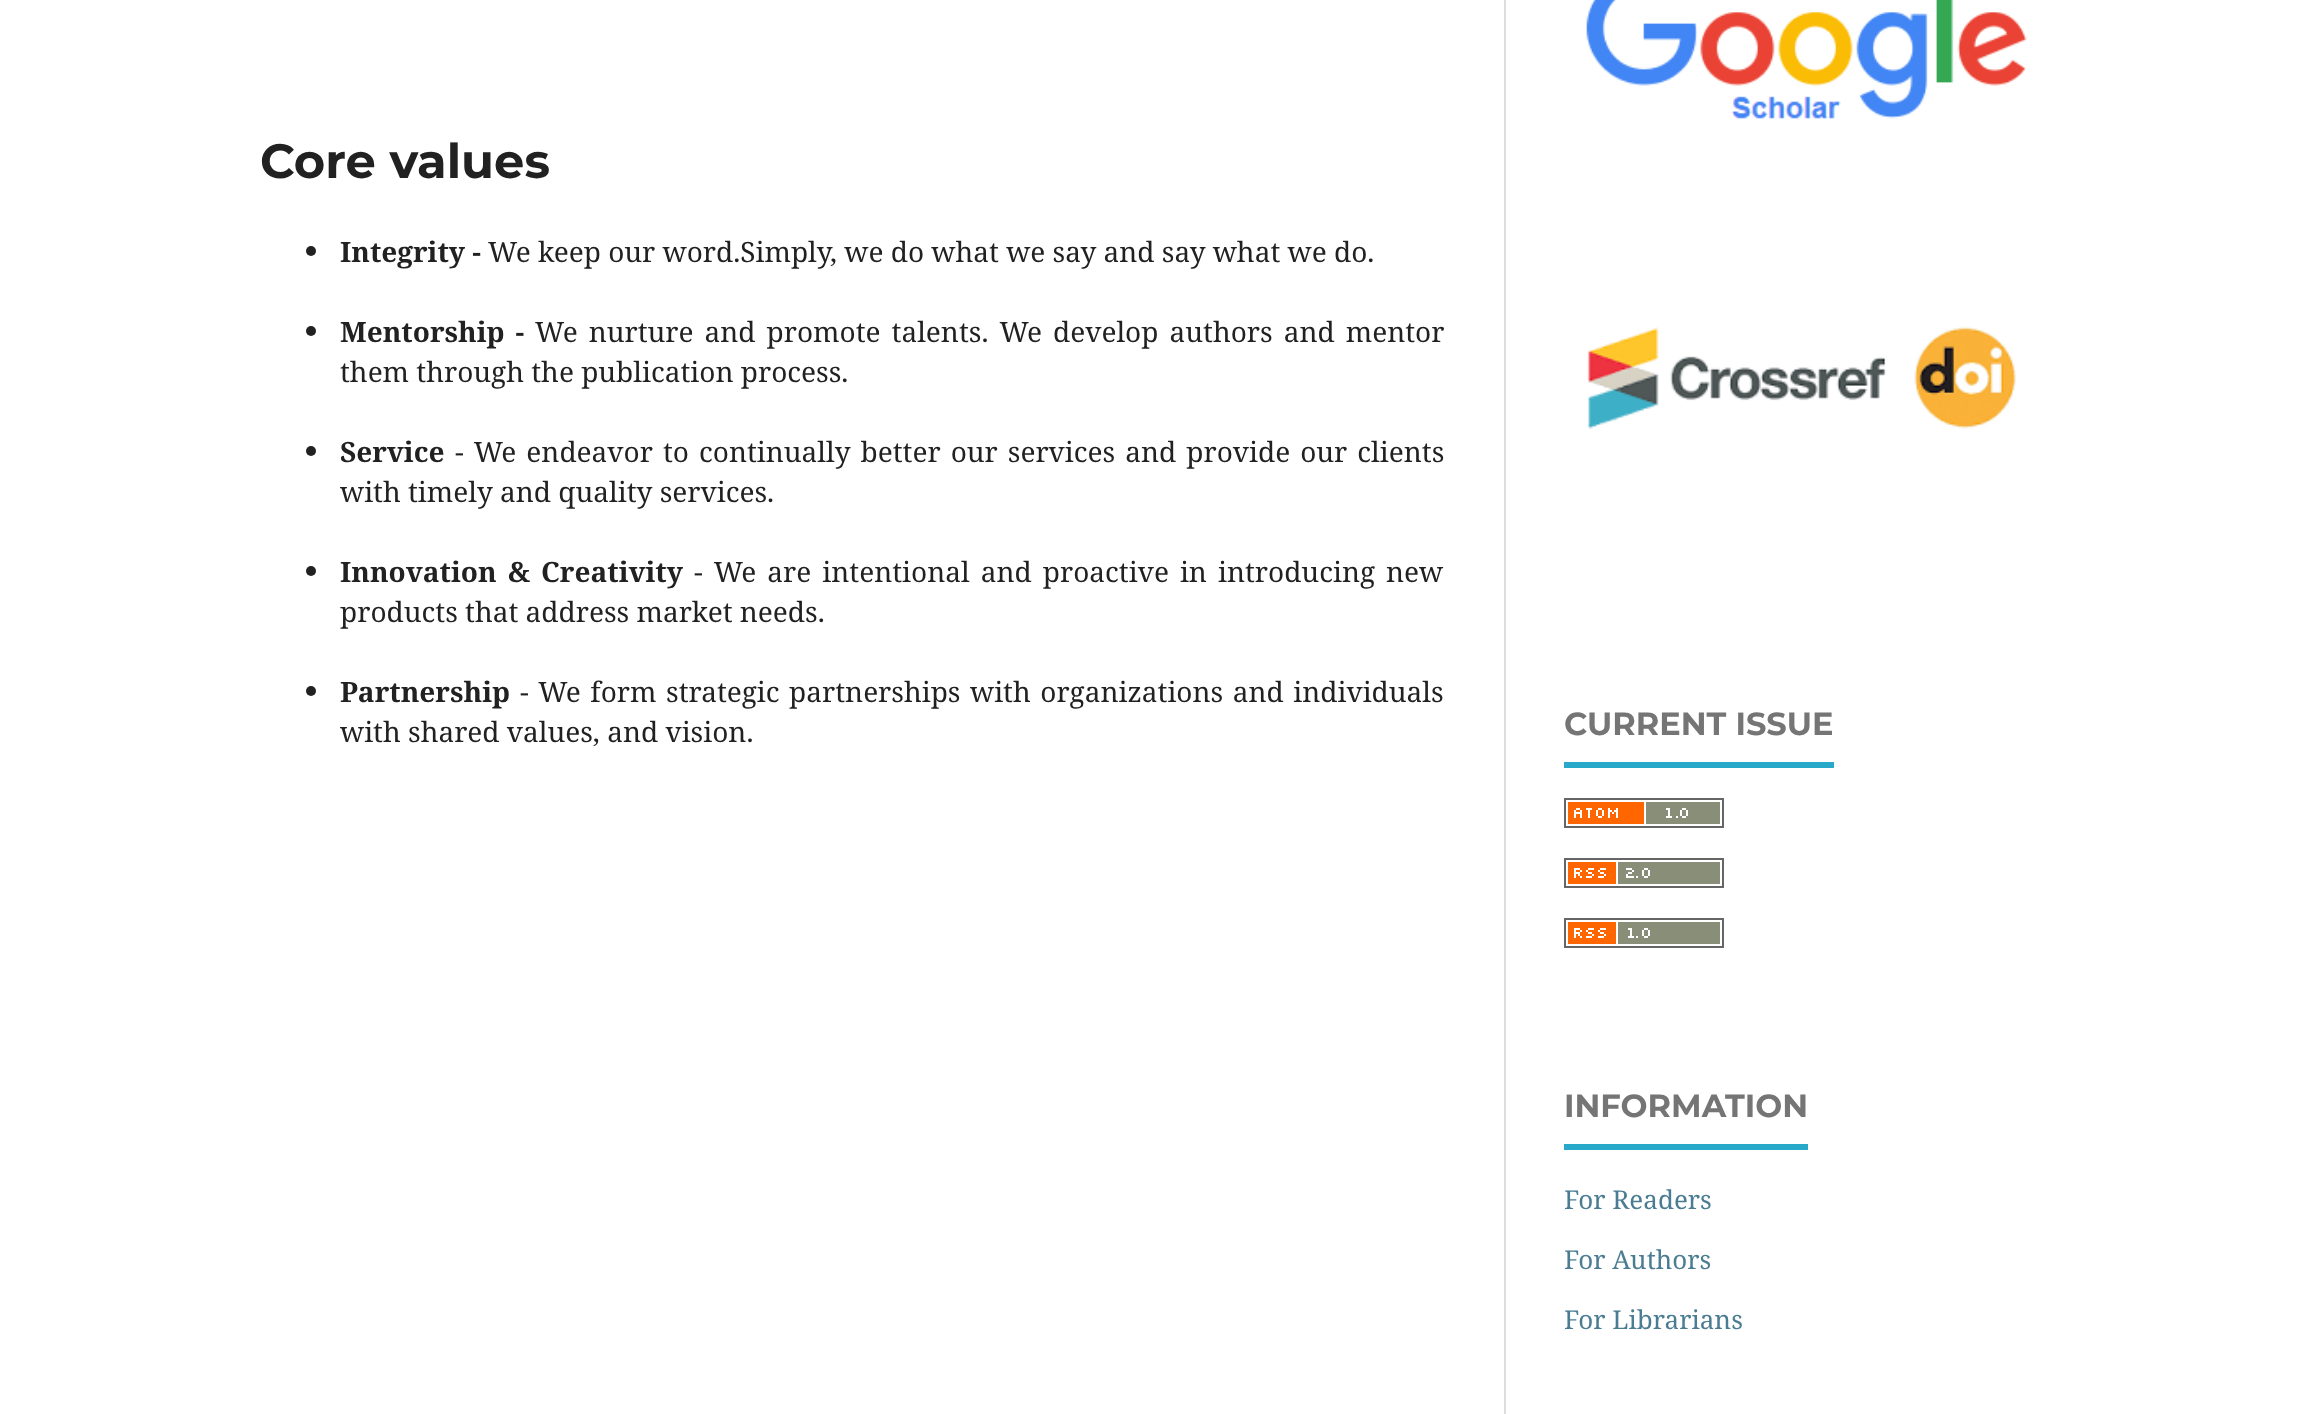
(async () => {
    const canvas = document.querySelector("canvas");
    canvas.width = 2303;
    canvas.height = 1414;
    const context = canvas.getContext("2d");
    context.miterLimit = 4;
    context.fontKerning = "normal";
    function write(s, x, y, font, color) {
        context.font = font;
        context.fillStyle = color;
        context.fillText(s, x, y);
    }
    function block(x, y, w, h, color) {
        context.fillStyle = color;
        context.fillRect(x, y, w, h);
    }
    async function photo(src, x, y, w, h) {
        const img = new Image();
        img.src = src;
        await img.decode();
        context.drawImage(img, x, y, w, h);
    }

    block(0, 0, 2303, 1414, "rgb(255, 255, 255)");
    write("Core values", 260, 178, "bold 48px Montserrat", "rgb(33, 33, 33)");
    context.beginPath();
    context.arc(311, 251, 5, 0, Math.PI * 2);
    context.fill();
    write("Integrity -", 340, 262, "bold 28px Noto Serif", "rgb(33, 33, 33)");
    write("We keep our word.Simply, we do what we say and say what we do.", 488, 262, "28px Noto Serif", "rgb(33, 33, 33)");
    context.beginPath();
    context.arc(311, 331, 5, 0, Math.PI * 2);
    context.fill();
    context.wordSpacing = "3.75px";
    write("Mentorship -", 340, 342, "bold 28px Noto Serif", "rgb(33, 33, 33)");
    write("We nurture and promote talents. We develop authors and mentor", 535, 342, "28px Noto Serif", "rgb(33, 33, 33)");
    context.wordSpacing = "0px";
    write("them through the publication process.", 340, 382, "28px Noto Serif", "rgb(33, 33, 33)");
    context.beginPath();
    context.arc(311, 451, 5, 0, Math.PI * 2);
    context.fill();
    write("Service", 340, 462, "bold 28px Noto Serif", "rgb(33, 33, 33)");
    context.wordSpacing = "2.75px";
    write("- We endeavor to continually better our services and provide our clients", 455, 462, "28px Noto Serif", "rgb(33, 33, 33)");
    context.wordSpacing = "0px";
    write("with timely and quality services.", 340, 502, "28px Noto Serif", "rgb(33, 33, 33)");
    context.beginPath();
    context.arc(311, 571, 5, 0, Math.PI * 2);
    context.fill();
    context.wordSpacing = "3.75px";
    write("Innovation & Creativity", 340, 582, "bold 28px Noto Serif", "rgb(33, 33, 33)");
    write("- We are intentional and proactive in introducing new", 694, 582, "28px Noto Serif", "rgb(33, 33, 33)");
    context.wordSpacing = "0px";
    write("products that address market needs.", 340, 622, "28px Noto Serif", "rgb(33, 33, 33)");
    context.beginPath();
    context.arc(311, 691, 5, 0, Math.PI * 2);
    context.fill();
    write("Partnership", 340, 702, "bold 28px Noto Serif", "rgb(33, 33, 33)");
    context.wordSpacing = "2.25px";
    write("- We form strategic partnerships with organizations and individuals", 520, 702, "28px Noto Serif", "rgb(33, 33, 33)");
    context.wordSpacing = "0px";
    write("with shared values, and vision.", 340, 742, "28px Noto Serif", "rgb(33, 33, 33)");
    block(1504, 0, 2, 1414, "rgb(221, 221, 221)");
    await photo("media/1.png", 1586, 0, 441, 119);
    await photo("media/2.png", 1587, 326, 429, 103);
    block(1564, 762, 270, 6, "rgb(40, 169, 202)");
    write("CURRENT ISSUE", 1564, 735, "bold 32px Montserrat", "rgb(117, 117, 117)");
    await photo("media/3.png", 1564, 798, 160, 30);
    await photo("media/4.png", 1564, 858, 160, 30);
    await photo("media/5.png", 1564, 918, 160, 30);
    block(1564, 1144, 244, 6, "rgb(40, 169, 202)");
    write("INFORMATION", 1564, 1117, "bold 32px Montserrat", "rgb(117, 117, 117)");
    write("For Readers", 1564, 1209, "26px Noto Serif", "rgb(75, 125, 146)");
    write("For Authors", 1564, 1269, "26px Noto Serif", "rgb(75, 125, 146)");
    write("For Librarians", 1564, 1329, "26px Noto Serif", "rgb(75, 125, 146)");
})();
